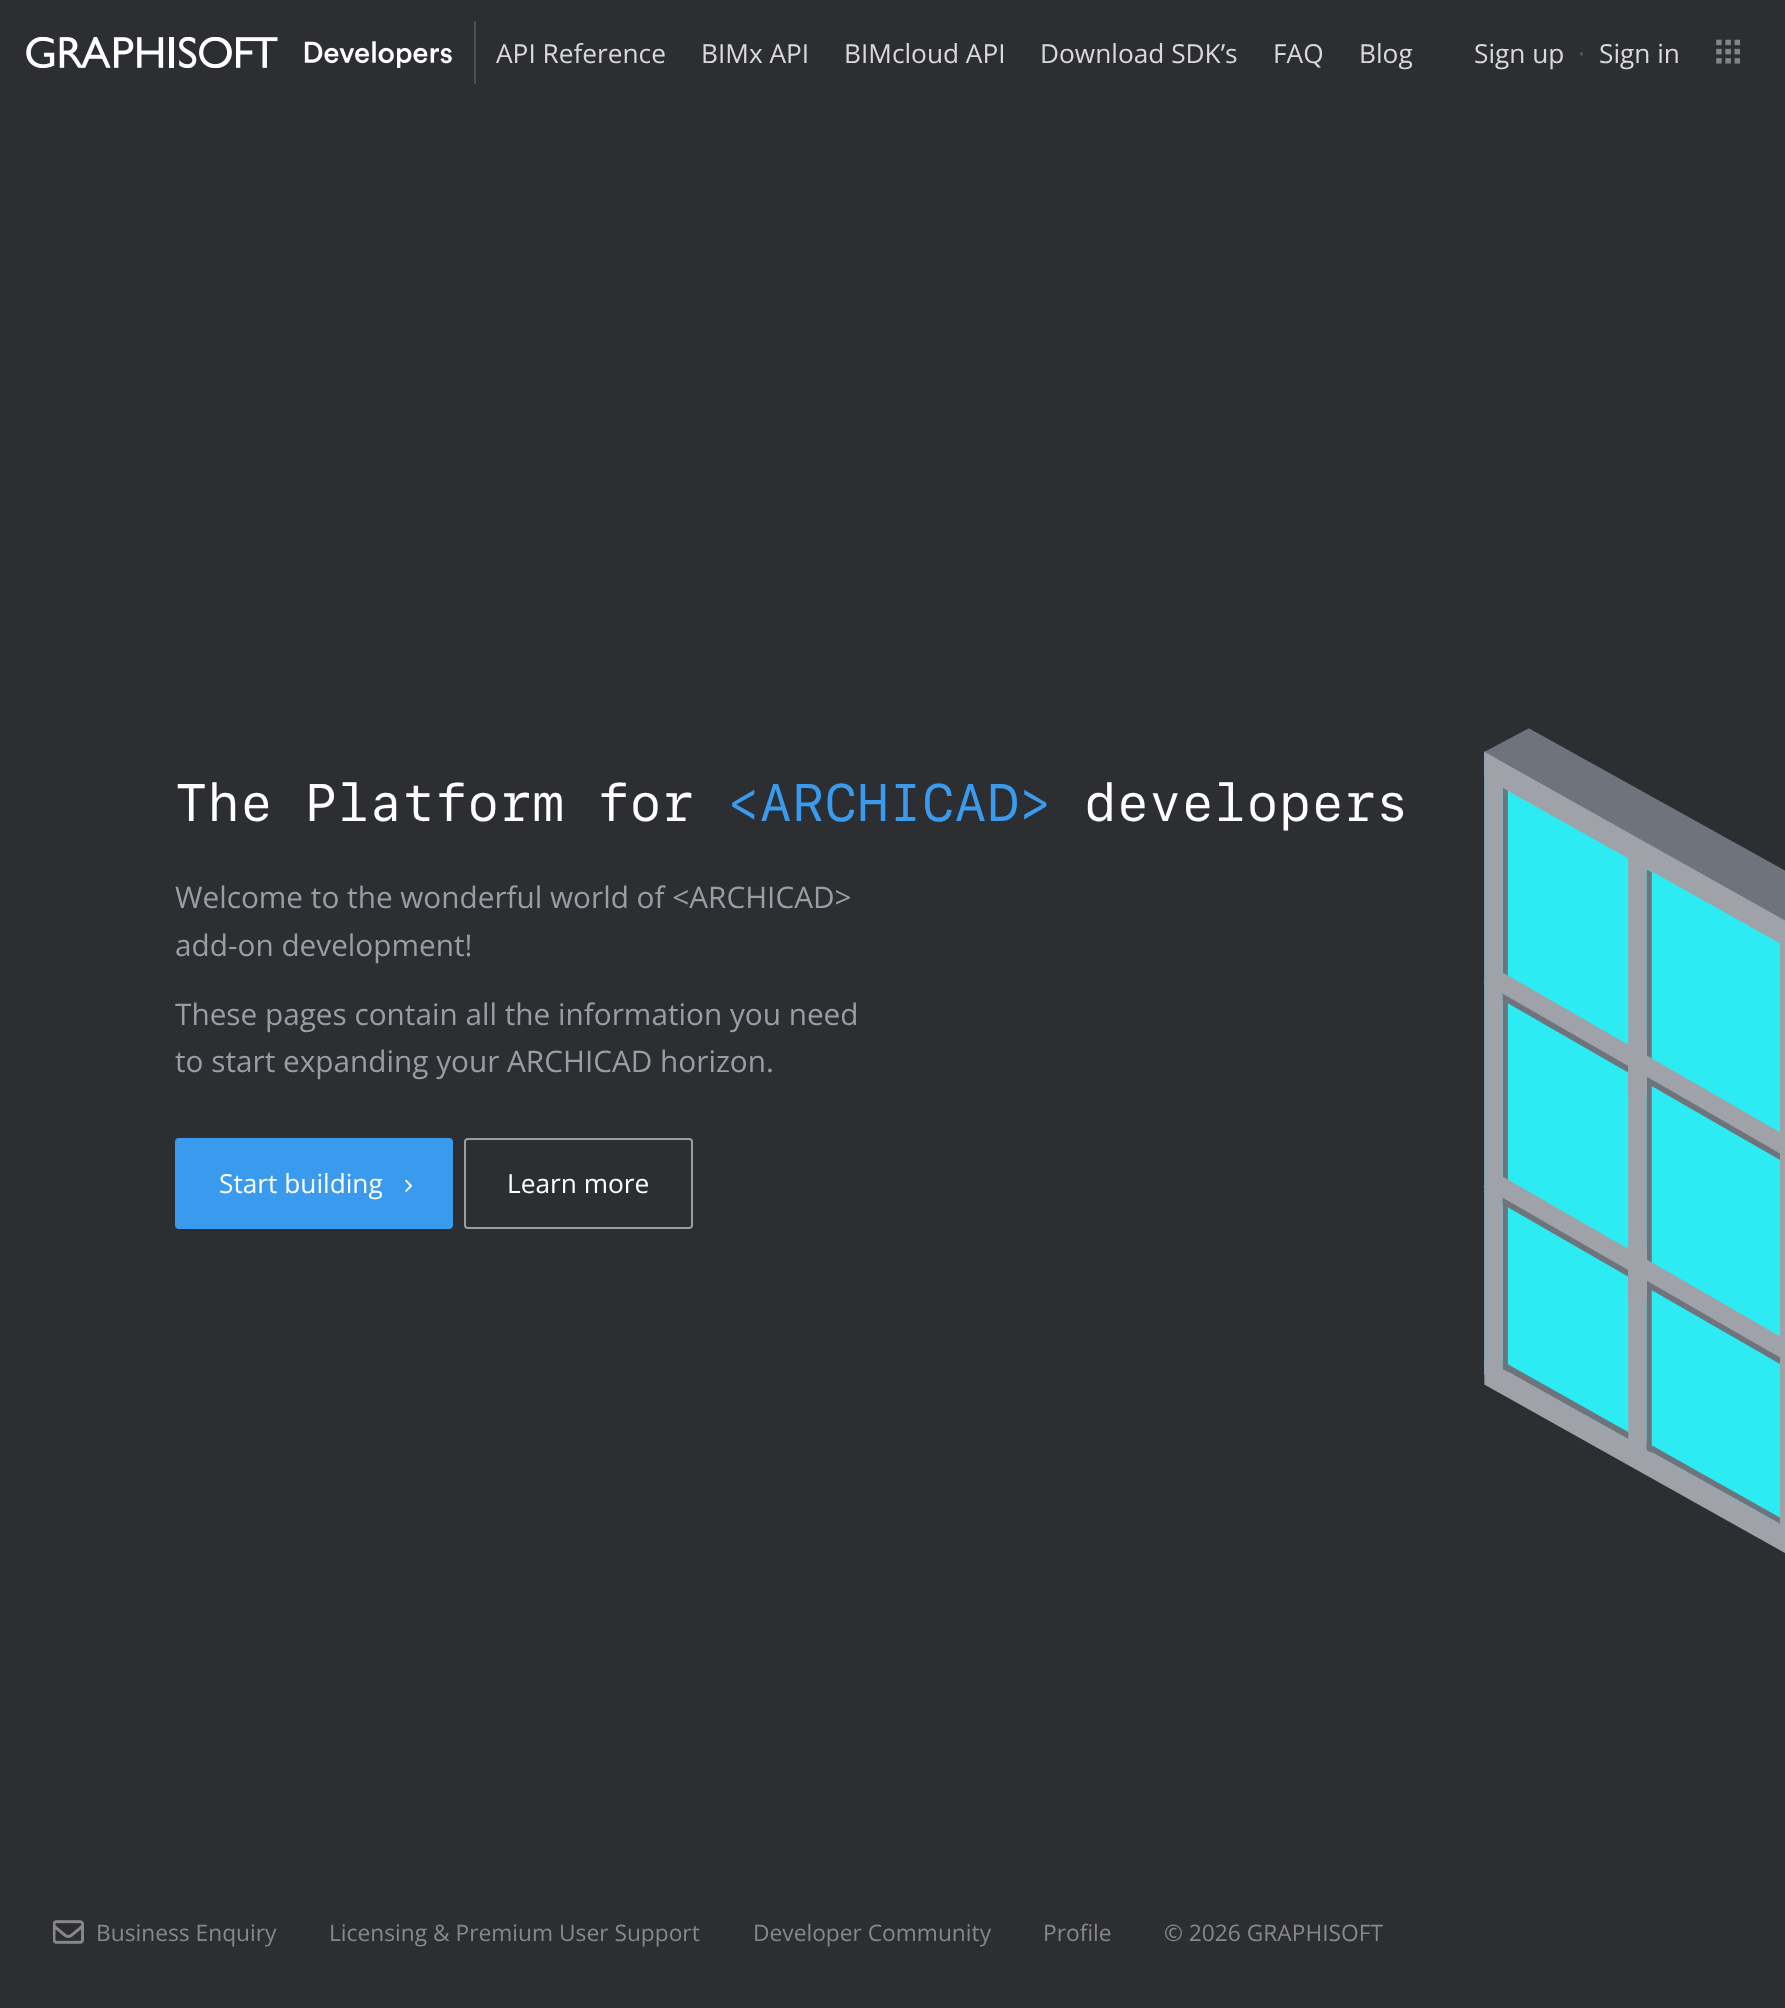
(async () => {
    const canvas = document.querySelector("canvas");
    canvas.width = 1785;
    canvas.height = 2008;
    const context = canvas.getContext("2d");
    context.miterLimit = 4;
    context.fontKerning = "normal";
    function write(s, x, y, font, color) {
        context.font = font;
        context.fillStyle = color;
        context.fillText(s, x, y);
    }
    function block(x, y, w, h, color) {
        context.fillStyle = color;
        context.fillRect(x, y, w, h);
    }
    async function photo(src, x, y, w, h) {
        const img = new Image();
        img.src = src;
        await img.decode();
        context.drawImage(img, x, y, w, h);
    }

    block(0, 0, 1785, 2008, "rgb(44, 46, 49)");
    await photo("media/1.png", 26, 37, 426, 31);
    block(474, 21, 2, 63, "rgb(79, 80, 83)");
    write("API Reference", 496, 63, "26.25px Open Sans", "rgb(217, 217, 217)");
    write("BIMx API", 701, 63, "26.25px Open Sans", "rgb(217, 217, 217)");
    write("BIMcloud API", 844, 63, "26.25px Open Sans", "rgb(217, 217, 217)");
    write("Download SDK’s", 1040, 63, "26.25px Open Sans", "rgb(217, 217, 217)");
    write("FAQ", 1273, 63, "26.25px Open Sans", "rgb(217, 217, 217)");
    write("Blog", 1359, 63, "26.25px Open Sans", "rgb(217, 217, 217)");
    write("Sign up", 1474, 63, "26.25px Open Sans", "rgb(217, 217, 217)");
    write("·", 1578, 63, "26.25px Open Sans", "rgb(86, 88, 90)");
    write("Sign in", 1599, 63, "26.25px Open Sans", "rgb(217, 217, 217)");
    await photo("media/2.png", 1716, 39, 25, 25);
    write("The Platform for", 175, 821, "52.5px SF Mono", "rgb(255, 255, 255)");
    write("<ARCHICAD>", 727, 821, "52.5px SF Mono", "rgb(58, 154, 237)");
    write("developers", 1084, 821, "52.5px SF Mono", "rgb(255, 255, 255)");
    write("Welcome to the wonderful world of <ARCHICAD>", 175, 908, "29.75px Open Sans", "rgb(152, 158, 164)");
    write("add-on development!", 175, 956, "29.75px Open Sans", "rgb(152, 158, 164)");
    write("These pages contain all the information you need", 175, 1025, "29.75px Open Sans", "rgb(152, 158, 164)");
    write("to start expanding your ARCHICAD horizon.", 175, 1072, "29.75px Open Sans", "rgb(152, 158, 164)");
    context.fillStyle = "rgb(58, 154, 237)";
    context.beginPath();
    context.roundRect(176, 1139, 276, 89, 3);
    context.fill();
    context.strokeStyle = "rgb(58, 154, 237)";
    context.lineWidth = 2;
    context.stroke();
    write("Start building", 219, 1193, "26.25px Open Sans", "rgb(255, 255, 255)");
    await photo("media/3.png", 405, 1179, 8, 13);
    context.beginPath();
    context.roundRect(465, 1139, 227, 89, 3);
    context.strokeStyle = "rgb(152, 158, 164)";
    context.stroke();
    write("Learn more", 507, 1193, "26.25px Open Sans", "rgb(255, 255, 255)");
    await photo("media/4.png", 1483, 728, 302, 825);
    await photo("media/5.png", 53, 1920, 31, 24);
    write("Business Enquiry", 96, 1941, "22.75px Open Sans", "rgb(136, 136, 136)");
    write("Licensing & Premium User Support", 329, 1941, "22.75px Open Sans", "rgb(136, 136, 136)");
    write("Developer Community", 753, 1941, "22.75px Open Sans", "rgb(136, 136, 136)");
    write("Profile", 1043, 1941, "22.75px Open Sans", "rgb(136, 136, 136)");
    write("© 2026 GRAPHISOFT", 1164, 1941, "22.75px Open Sans", "rgb(136, 136, 136)");
})();
